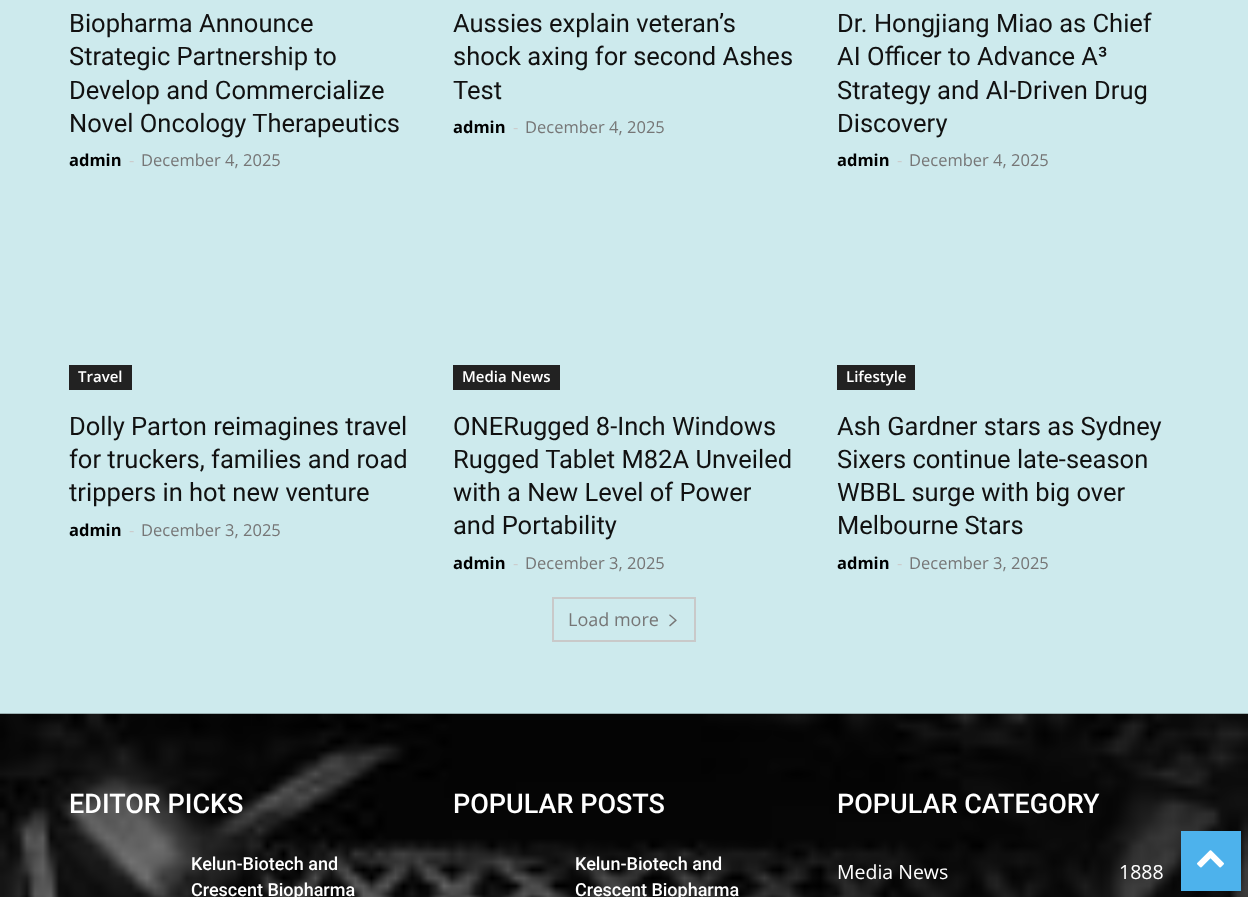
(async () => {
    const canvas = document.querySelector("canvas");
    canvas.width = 1248;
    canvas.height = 897;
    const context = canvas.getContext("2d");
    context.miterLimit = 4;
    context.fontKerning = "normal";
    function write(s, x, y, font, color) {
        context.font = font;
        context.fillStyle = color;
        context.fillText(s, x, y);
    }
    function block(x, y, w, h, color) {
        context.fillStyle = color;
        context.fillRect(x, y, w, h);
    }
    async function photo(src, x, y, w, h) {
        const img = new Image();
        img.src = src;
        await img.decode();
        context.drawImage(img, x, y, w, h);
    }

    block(0, 0, 1248, 897, "rgb(205, 234, 237)");
    write("Biopharma Announce", 69, 32, "25.5px Roboto", "rgb(17, 17, 17)");
    write("Strategic Partnership to", 69, 65, "25.5px Roboto", "rgb(17, 17, 17)");
    write("Develop and Commercialize", 69, 99, "25.5px Roboto", "rgb(17, 17, 17)");
    write("Novel Oncology Therapeutics", 69, 132, "25.5px Roboto", "rgb(17, 17, 17)");
    write("admin", 69, 166, "bold 16.5px Open Sans", "rgb(0, 0, 0)");
    write("-", 129, 166, "16.5px Open Sans", "rgb(204, 204, 204)");
    write("December 4, 2025", 141, 166, "16.5px Open Sans", "rgb(118, 118, 118)");
    write("Aussies explain veteran’s", 453, 32, "25.5px Roboto", "rgb(17, 17, 17)");
    write("shock axing for second Ashes", 453, 65, "25.5px Roboto", "rgb(17, 17, 17)");
    write("Test", 453, 99, "25.5px Roboto", "rgb(17, 17, 17)");
    write("admin", 453, 133, "bold 16.5px Open Sans", "rgb(0, 0, 0)");
    write("-", 513, 133, "16.5px Open Sans", "rgb(204, 204, 204)");
    write("December 4, 2025", 525, 133, "16.5px Open Sans", "rgb(118, 118, 118)");
    write("Dr. Hongjiang Miao as Chief", 837, 32, "25.5px Roboto", "rgb(17, 17, 17)");
    write("AI Officer to Advance A³", 837, 65, "25.5px Roboto", "rgb(17, 17, 17)");
    write("Strategy and AI-Driven Drug", 837, 99, "25.5px Roboto", "rgb(17, 17, 17)");
    write("Discovery", 837, 132, "25.5px Roboto", "rgb(17, 17, 17)");
    write("admin", 837, 166, "bold 16.5px Open Sans", "rgb(0, 0, 0)");
    write("-", 897, 166, "16.5px Open Sans", "rgb(204, 204, 204)");
    write("December 4, 2025", 909, 166, "16.5px Open Sans", "rgb(118, 118, 118)");
    block(69, 365, 63, 25, "rgb(34, 34, 34)");
    write("Travel", 78, 382, "600 15px Open Sans", "rgb(255, 255, 255)");
    write("Dolly Parton reimagines travel", 69, 435, "25.5px Roboto", "rgb(17, 17, 17)");
    write("for truckers, families and road", 69, 468, "25.5px Roboto", "rgb(17, 17, 17)");
    write("trippers in hot new venture", 69, 501, "25.5px Roboto", "rgb(17, 17, 17)");
    write("admin", 69, 536, "bold 16.5px Open Sans", "rgb(0, 0, 0)");
    write("-", 129, 536, "16.5px Open Sans", "rgb(204, 204, 204)");
    write("December 3, 2025", 141, 536, "16.5px Open Sans", "rgb(118, 118, 118)");
    block(453, 365, 107, 25, "rgb(34, 34, 34)");
    write("Media News", 462, 382, "600 15px Open Sans", "rgb(255, 255, 255)");
    write("ONERugged 8-Inch Windows", 453, 435, "25.5px Roboto", "rgb(17, 17, 17)");
    write("Rugged Tablet M82A Unveiled", 453, 468, "25.5px Roboto", "rgb(17, 17, 17)");
    write("with a New Level of Power", 453, 501, "25.5px Roboto", "rgb(17, 17, 17)");
    write("and Portability", 453, 534, "25.5px Roboto", "rgb(17, 17, 17)");
    write("admin", 453, 569, "bold 16.5px Open Sans", "rgb(0, 0, 0)");
    write("-", 513, 569, "16.5px Open Sans", "rgb(204, 204, 204)");
    write("December 3, 2025", 525, 569, "16.5px Open Sans", "rgb(118, 118, 118)");
    block(837, 365, 78, 25, "rgb(34, 34, 34)");
    write("Lifestyle", 846, 382, "600 15px Open Sans", "rgb(255, 255, 255)");
    write("Ash Gardner stars as Sydney", 837, 435, "25.5px Roboto", "rgb(17, 17, 17)");
    write("Sixers continue late-season", 837, 468, "25.5px Roboto", "rgb(17, 17, 17)");
    write("WBBL surge with big over", 837, 501, "25.5px Roboto", "rgb(17, 17, 17)");
    write("Melbourne Stars", 837, 534, "25.5px Roboto", "rgb(17, 17, 17)");
    write("admin", 837, 569, "bold 16.5px Open Sans", "rgb(0, 0, 0)");
    write("-", 897, 569, "16.5px Open Sans", "rgb(204, 204, 204)");
    write("December 3, 2025", 909, 569, "16.5px Open Sans", "rgb(118, 118, 118)");
    context.strokeStyle = "rgb(201, 201, 201)";
    context.lineWidth = 2;
    context.strokeRect(553, 598, 142, 43);
    write("Load more", 568, 626, "18px Open Sans", "rgb(118, 118, 118)");
    await photo("media/1.png", 669, 614, 8, 13);
    await photo("media/2.png", 0, 713, 1248, 184);
    write("EDITOR PICKS", 69, 813, "500 27px Roboto", "rgb(255, 255, 255)");
    write("Kelun-Biotech and", 191, 870, "500 18px Roboto", "rgb(255, 255, 255)");
    write("Crescent Biopharma", 191, 896, "500 18px Roboto", "rgb(255, 255, 255)");
    write("POPULAR POSTS", 453, 813, "500 27px Roboto", "rgb(255, 255, 255)");
    write("Kelun-Biotech and", 575, 870, "500 18px Roboto", "rgb(255, 255, 255)");
    write("Crescent Biopharma", 575, 896, "500 18px Roboto", "rgb(255, 255, 255)");
    write("POPULAR CATEGORY", 837, 813, "500 27px Roboto", "rgb(255, 255, 255)");
    write("Media News", 837, 879, "19.5px Open Sans", "rgb(255, 255, 255)");
    write("1888", 1119, 879, "19.5px Open Sans", "rgb(255, 255, 255)");
    block(1181, 831, 60, 60, "rgb(77, 178, 236)");
    await photo("media/3.png", 1197, 850, 27, 18);
})();
